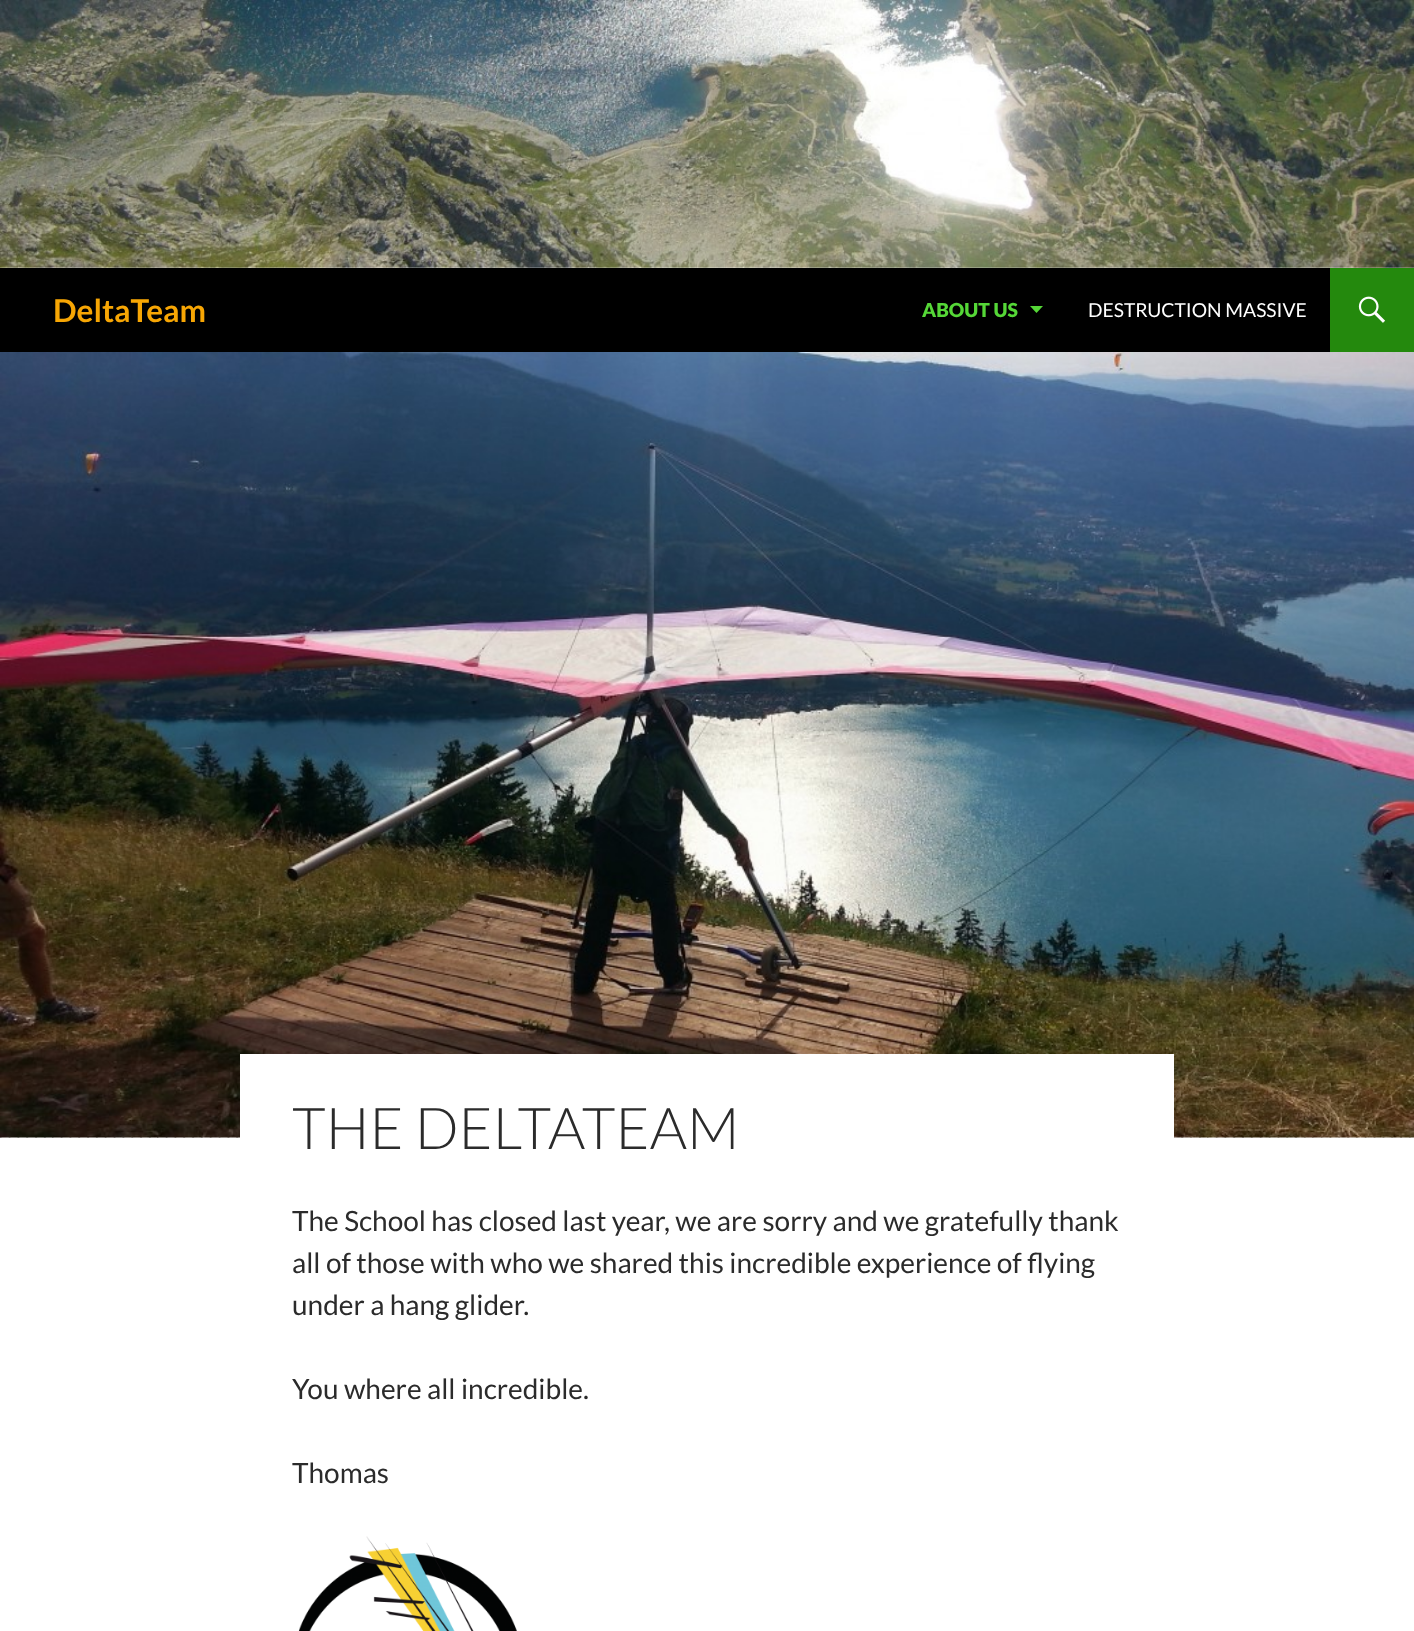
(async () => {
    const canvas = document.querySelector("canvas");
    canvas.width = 1414;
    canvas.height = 1631;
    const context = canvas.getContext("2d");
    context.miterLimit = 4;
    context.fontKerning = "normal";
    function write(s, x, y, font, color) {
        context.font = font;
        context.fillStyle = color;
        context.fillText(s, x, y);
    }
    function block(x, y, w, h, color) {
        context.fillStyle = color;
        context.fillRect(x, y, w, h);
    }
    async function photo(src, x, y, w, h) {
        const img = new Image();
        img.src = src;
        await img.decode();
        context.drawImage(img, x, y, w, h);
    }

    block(0, 0, 1414, 1631, "rgb(255, 255, 255)");
    await photo("media/1.png", 0, 0, 1414, 268);
    block(0, 268, 1330, 84, "rgb(0, 0, 0)");
    write("DeltaTeam", 53, 322, "bold 31.5px Lato", "rgb(247, 166, 4)");
    write("ABOUT US", 922, 317, "900 19.25px Lato", "rgb(85, 215, 55)");
    context.beginPath();
    context.moveTo(1030, 306);
    context.lineTo(1036.5, 313);
    context.lineTo(1043, 306);
    context.closePath();
    context.fill();
    write("DESTRUCTION MASSIVE", 1088, 317, "19.25px Lato", "rgb(255, 255, 255)");
    block(1330, 268, 84, 84, "rgb(36, 137, 13)");
    await photo("media/2.png", 1358, 296, 27, 27);
    block(0, 1137, 1412, 1, "rgb(178, 178, 178)");
    await photo("media/3.png", 1, 1137, 1413, 1);
    await photo("media/4.png", 0, 352, 1414, 786);
    block(240, 1054, 934, 84, "rgb(255, 255, 255)");
    write("THE DELTATEAM", 292, 1149, "300 57.75px Lato", "rgb(43, 43, 43)");
    write("The School has closed last year, we are sorry and we gratefully thank", 292, 1231, "28px Lato", "rgb(43, 43, 43)");
    write("all of those with who we shared this incredible experience of flying", 292, 1273, "28px Lato", "rgb(43, 43, 43)");
    write("under a hang glider.", 292, 1315, "28px Lato", "rgb(43, 43, 43)");
    write("You where all incredible.", 292, 1399, "28px Lato", "rgb(43, 43, 43)");
    write("Thomas", 292, 1483, "28px Lato", "rgb(43, 43, 43)");
    await photo("media/5.png", 298, 1536, 219, 95);
})();
